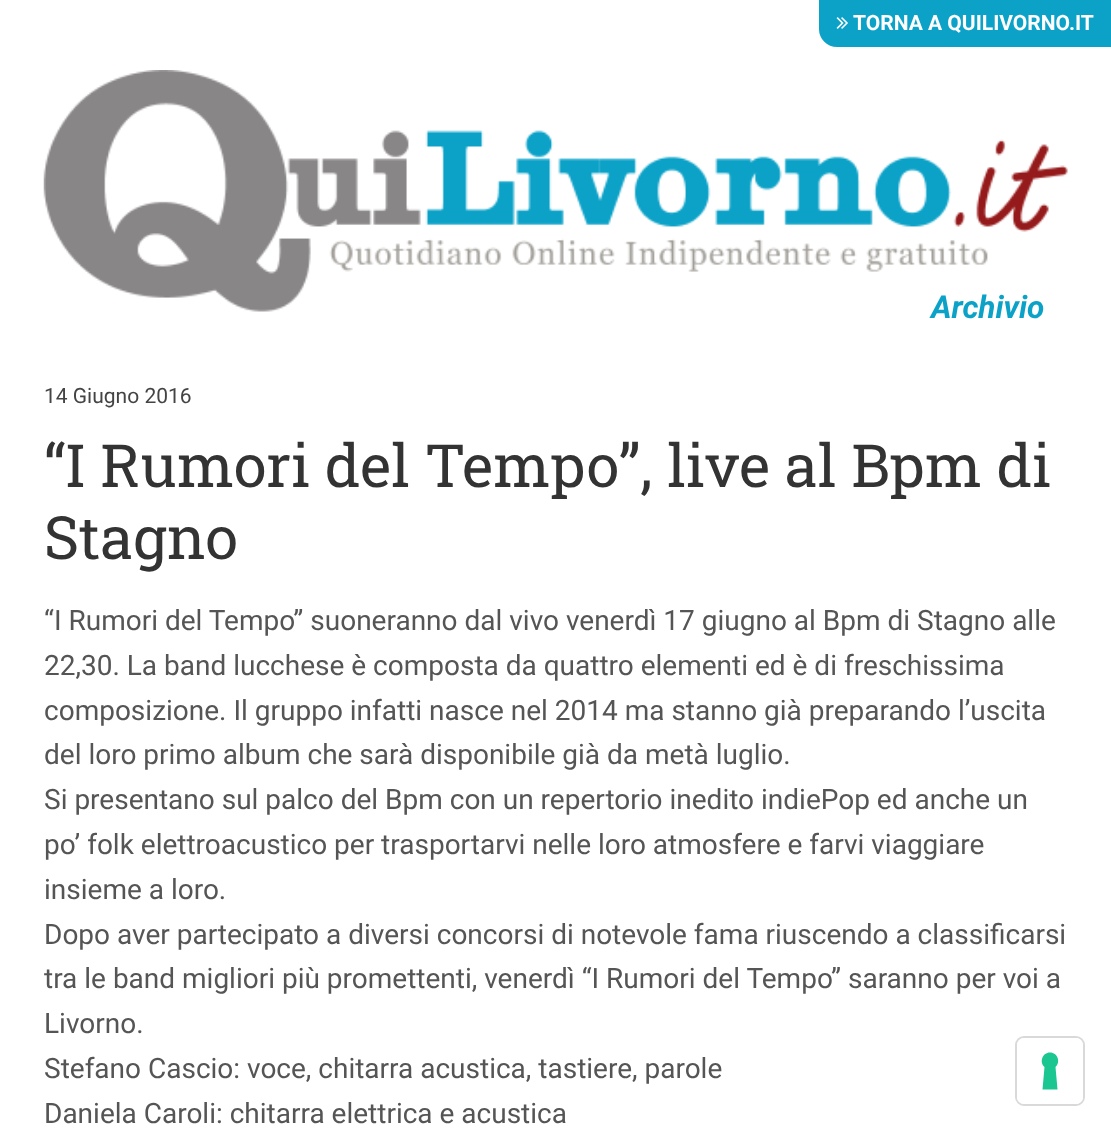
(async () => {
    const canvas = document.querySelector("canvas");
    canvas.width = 1111;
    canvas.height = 1132;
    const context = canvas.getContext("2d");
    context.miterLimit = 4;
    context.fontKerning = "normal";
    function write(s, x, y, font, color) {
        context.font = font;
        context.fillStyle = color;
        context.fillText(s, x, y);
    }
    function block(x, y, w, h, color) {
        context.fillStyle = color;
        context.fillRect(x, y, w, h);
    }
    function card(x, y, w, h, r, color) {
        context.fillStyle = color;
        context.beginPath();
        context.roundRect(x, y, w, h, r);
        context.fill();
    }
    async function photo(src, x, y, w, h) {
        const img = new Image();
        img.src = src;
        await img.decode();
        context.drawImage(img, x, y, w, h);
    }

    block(0, 0, 1111, 1132, "rgb(255, 255, 255)");
    context.fillStyle = "rgb(12, 162, 200)";
    context.beginPath();
    context.roundRect(819, 0, 292, 47, [0, 0, 0, 18]);
    context.fill();
    await photo("media/1.png", 836, 17, 12, 12);
    write("TORNA A QUILIVORNO.IT", 853, 30, "bold 21px Roboto", "rgb(255, 255, 255)");
    await photo("media/2.png", 43, 70, 1025, 242);
    write("Archivio", 931, 318, "italic bold 31.5px Roboto", "rgb(12, 162, 200)");
    write("14 Giugno 2016", 44, 403, "21px Roboto", "rgb(68, 68, 68)");
    write("“I Rumori del Tempo”, live al Bpm di", 44, 487, "59.5px Roboto Slab", "rgb(51, 51, 51)");
    write("Stagno", 44, 559, "59.5px Roboto Slab", "rgb(51, 51, 51)");
    write("“I Rumori del Tempo” suoneranno dal vivo venerdì 17 giugno al Bpm di Stagno alle", 44, 630, "28px Roboto", "rgb(85, 85, 85)");
    write("22,30. La band lucchese è composta da quattro elementi ed è di freschissima", 44, 675, "28px Roboto", "rgb(85, 85, 85)");
    write("composizione. Il gruppo infatti nasce nel 2014 ma stanno già preparando l’uscita", 44, 720, "28px Roboto", "rgb(85, 85, 85)");
    write("del loro primo album che sarà disponibile già da metà luglio.", 44, 764, "28px Roboto", "rgb(85, 85, 85)");
    write("Si presentano sul palco del Bpm con un repertorio inedito indiePop ed anche un", 44, 809, "28px Roboto", "rgb(85, 85, 85)");
    write("po’ folk elettroacustico per trasportarvi nelle loro atmosfere e farvi viaggiare", 44, 854, "28px Roboto", "rgb(85, 85, 85)");
    write("insieme a loro.", 44, 899, "28px Roboto", "rgb(85, 85, 85)");
    write("Dopo aver partecipato a diversi concorsi di notevole fama riuscendo a classificarsi", 44, 944, "28px Roboto", "rgb(85, 85, 85)");
    write("tra le band migliori più promettenti, venerdì “I Rumori del Tempo” saranno per voi a", 44, 988, "28px Roboto", "rgb(85, 85, 85)");
    write("Livorno.", 44, 1033, "28px Roboto", "rgb(85, 85, 85)");
    write("Stefano Cascio: voce, chitarra acustica, tastiere, parole", 44, 1078, "28px Roboto", "rgb(85, 85, 85)");
    write("Daniela Caroli: chitarra elettrica e acustica", 44, 1123, "28px Roboto", "rgb(85, 85, 85)");
    context.beginPath();
    context.roundRect(1016, 1037, 68, 68, 8);
    context.strokeStyle = "rgb(217, 217, 217)";
    context.lineWidth = 2;
    context.stroke();
    card(1017, 1038, 66, 66, 7, "rgb(255, 255, 255)");
    context.fillStyle = "rgb(28, 198, 145)";
    context.beginPath();
    context.moveTo(1050, 1052.5);
    context.bezierCurveTo(1057.5, 1052.5, 1061, 1062, 1055.5, 1067);
    context.lineTo(1057.5, 1089.5);
    context.lineTo(1042.5, 1089.5);
    context.lineTo(1044.5, 1067);
    context.bezierCurveTo(1039, 1062, 1042.5, 1052.5, 1050, 1052.5);
    context.closePath();
    context.fill("evenodd");
})();
